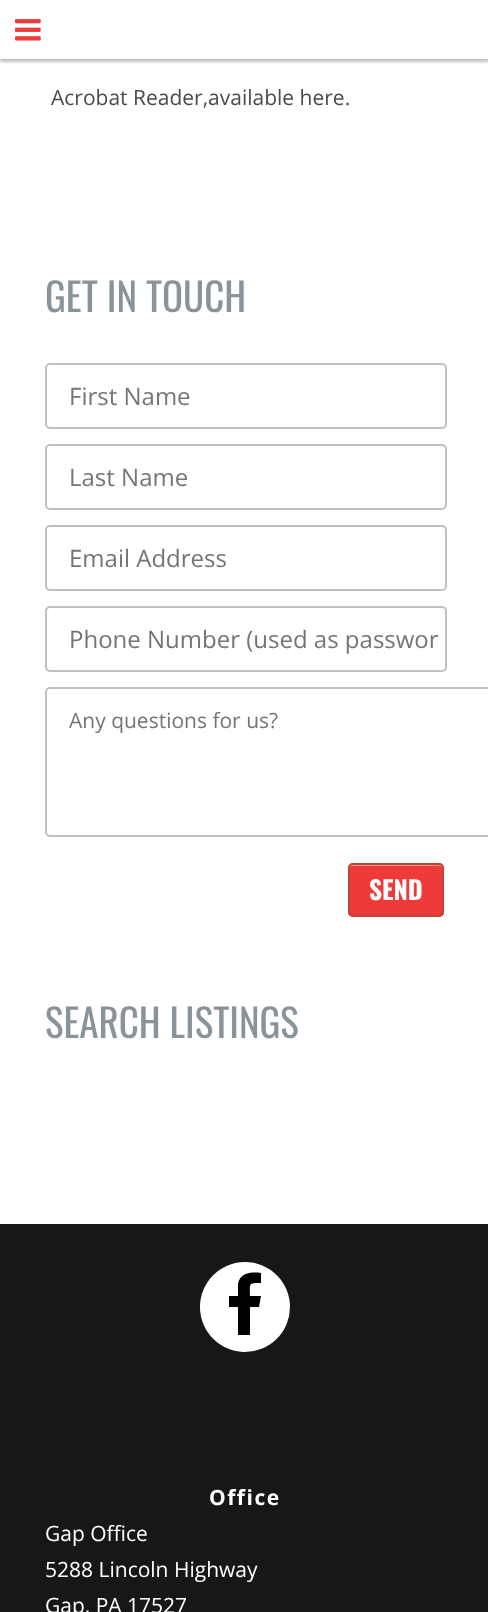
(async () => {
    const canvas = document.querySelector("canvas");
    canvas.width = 488;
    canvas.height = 1612;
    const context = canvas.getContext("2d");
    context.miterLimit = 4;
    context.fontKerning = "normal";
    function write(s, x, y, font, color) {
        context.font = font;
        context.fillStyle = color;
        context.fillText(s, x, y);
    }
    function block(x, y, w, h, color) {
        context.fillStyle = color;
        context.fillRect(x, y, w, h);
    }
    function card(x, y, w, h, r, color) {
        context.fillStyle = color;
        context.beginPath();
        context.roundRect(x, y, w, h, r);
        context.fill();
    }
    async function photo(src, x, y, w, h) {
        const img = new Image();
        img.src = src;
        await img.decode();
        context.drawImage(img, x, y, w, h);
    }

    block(0, 0, 488, 1612, "rgb(255, 255, 255)");
    context.fillStyle = "rgb(192, 192, 192)";
    context.filter = "blur(1.5px)";
    context.beginPath();
    context.rect(0, 3, 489, 59);
    context.fill();
    context.filter = "none";
    block(0, 0, 488, 59, "rgb(255, 255, 255)");
    await photo("media/1.png", 15, 19, 26, 22);
    write("Acrobat Reader,available here.", 51, 105, "21px Open Sans", "rgb(75, 75, 75)");
    write("GET IN TOUCH", 45, 312, "39px Oswald", "rgb(136, 147, 154)");
    context.beginPath();
    context.roundRect(46, 364, 400, 64, 4);
    context.strokeStyle = "rgb(192, 192, 192)";
    context.lineWidth = 2;
    context.stroke();
    write("First Name", 69, 405, "24px Open Sans", "rgb(117, 117, 117)");
    context.beginPath();
    context.roundRect(46, 445, 400, 64, 4);
    context.stroke();
    write("Last Name", 69, 486, "24px Open Sans", "rgb(117, 117, 117)");
    context.beginPath();
    context.roundRect(46, 526, 400, 64, 4);
    context.stroke();
    write("Email Address", 69, 567, "24px Open Sans", "rgb(117, 117, 117)");
    context.beginPath();
    context.roundRect(46, 607, 400, 64, 4);
    context.stroke();
    write("Phone Number (used as passwor", 69, 648, "24px Open Sans", "rgb(117, 117, 117)");
    context.beginPath();
    context.roundRect(46, 688, 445, 148, 4);
    context.stroke();
    write("Any questions for us?", 69, 728, "21px Open Sans", "rgb(117, 117, 117)");
    card(348, 863, 96, 54, 5, "rgb(238, 58, 57)");
    context.fillStyle = "rgb(248, 150, 135)";
    context.beginPath();
    context.moveTo(352, 866);
    context.lineTo(425, 866);
    context.bezierCurveTo(446, 866, 442, 862, 442, 883);
    context.lineTo(442, 914);
    context.bezierCurveTo(443, 914, 443, 913, 443, 912);
    context.lineTo(443, 867);
    context.bezierCurveTo(443, 865, 442, 864, 440, 864);
    context.lineTo(353, 864);
    context.bezierCurveTo(351, 864, 350, 865, 350, 867);
    context.lineTo(350, 868);
    context.bezierCurveTo(350, 867, 351, 866, 352, 866);
    context.closePath();
    context.fill();
    context.beginPath();
    context.roundRect(349, 864, 94, 52, 4);
    context.strokeStyle = "rgb(192, 71, 53)";
    context.stroke();
    write("SEND", 369, 900, "bold 25.5px Oswald", "rgb(255, 255, 255)");
    write("SEARCH LISTINGS", 45, 1038, "39px Oswald", "rgb(136, 147, 154)");
    block(0, 1224, 488, 388, "rgb(23, 23, 23)");
    context.fillStyle = "rgb(255, 255, 255)";
    context.beginPath();
    context.arc(245, 1307, 45, 0, Math.PI * 2);
    context.fill();
    context.fillStyle = "rgb(0, 0, 0)";
    context.beginPath();
    context.moveTo(261, 1273);
    context.lineTo(261, 1283);
    context.bezierCurveTo(248, 1283, 250, 1283, 250, 1296);
    context.lineTo(261, 1296);
    context.lineTo(259, 1307);
    context.lineTo(250, 1307);
    context.lineTo(250, 1335);
    context.lineTo(238, 1335);
    context.lineTo(238, 1307);
    context.lineTo(229, 1307);
    context.lineTo(229, 1296);
    context.lineTo(238, 1296);
    context.lineTo(238, 1284);
    context.bezierCurveTo(240, 1272, 252, 1272, 261, 1273);
    context.closePath();
    context.fill();
    context.letterSpacing = "1.5px";
    write("Office", 209, 1505, "bold 21px Open Sans", "rgb(255, 255, 255)");
    context.letterSpacing = "0px";
    write("Gap Office", 45, 1541, "21px Open Sans", "rgb(255, 255, 255)");
    write("5288 Lincoln Highway", 45, 1577, "21px Open Sans", "rgb(255, 255, 255)");
    write("Gap, PA 17527", 45, 1613, "21px Open Sans", "rgb(255, 255, 255)");
})();
